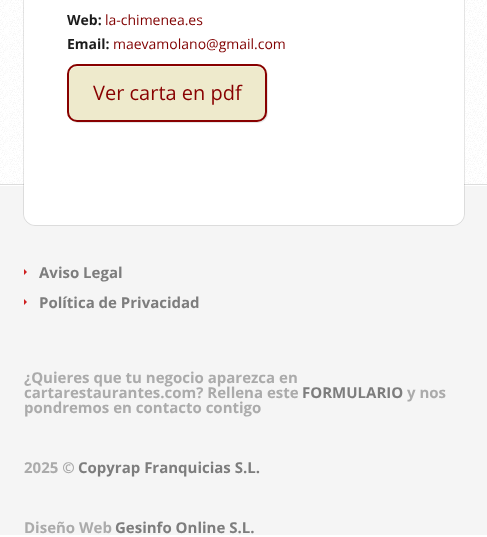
(async () => {
    const canvas = document.querySelector("canvas");
    canvas.width = 487;
    canvas.height = 537;
    const context = canvas.getContext("2d");
    context.miterLimit = 4;
    context.fontKerning = "normal";
    function write(s, x, y, font, color) {
        context.font = font;
        context.fillStyle = color;
        context.fillText(s, x, y);
    }
    function block(x, y, w, h, color) {
        context.fillStyle = color;
        context.fillRect(x, y, w, h);
    }
    function card(x, y, w, h, r, color) {
        context.fillStyle = color;
        context.beginPath();
        context.roundRect(x, y, w, h, r);
        context.fill();
    }
    async function photo(src, x, y, w, h) {
        const img = new Image();
        img.src = src;
        await img.decode();
        context.drawImage(img, x, y, w, h);
    }

    block(0, 0, 487, 537, "rgb(255, 255, 255)");
    await photo("media/1.png", 0, 0, 487, 184);
    block(0, 186, 487, 349, "rgb(245, 245, 245)");
    block(0, 184, 487, 1, "rgb(221, 221, 221)");
    context.beginPath();
    context.roundRect(23.5, -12.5, 441, 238, 11.5);
    context.strokeStyle = "rgba(0, 0, 0, 0.1)";
    context.stroke();
    card(24, -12, 440, 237, 12, "rgb(255, 255, 255)");
    write("Web:", 67, 25, "bold 14px Open Sans", "rgb(28, 28, 28)");
    write("la-chimenea.es", 105, 25, "14px Open Sans", "rgb(128, 0, 0)");
    write("Email:", 67, 49, "bold 14px Open Sans", "rgb(28, 28, 28)");
    write("maevamolano@gmail.com", 113, 49, "14px Open Sans", "rgb(128, 0, 0)");
    context.fillStyle = "rgba(0, 0, 0, 0.1)";
    context.filter = "blur(0.5px)";
    context.beginPath();
    context.roundRect(68, 65, 200, 58, 10);
    context.fill();
    context.filter = "none";
    card(67, 64, 200, 58, 10, "rgb(238, 234, 204)");
    context.fillStyle = "rgb(245, 242, 224)";
    context.beginPath();
    context.moveTo(77, 67);
    context.lineTo(257, 67);
    context.bezierCurveTo(261, 67, 265, 71, 265, 75);
    context.lineTo(265, 74);
    context.bezierCurveTo(265, 70, 261, 66, 257, 66);
    context.lineTo(77, 66);
    context.bezierCurveTo(73, 66, 69, 70, 69, 74);
    context.lineTo(69, 75);
    context.bezierCurveTo(69, 71, 73, 67, 77, 67);
    context.closePath();
    context.fill();
    context.beginPath();
    context.roundRect(68, 65, 198, 56, 9);
    context.strokeStyle = "rgb(136, 0, 0)";
    context.lineWidth = 2;
    context.stroke();
    write("Ver carta en pdf", 93, 100, "20px Open Sans", "rgb(136, 0, 0)");
    context.fillStyle = "rgb(206, 33, 33)";
    context.beginPath();
    context.moveTo(24, 275);
    context.lineTo(24, 269);
    context.lineTo(27, 272);
    context.closePath();
    context.fill();
    write("Aviso Legal", 39, 278, "bold 15px Open Sans", "rgb(125, 125, 125)");
    context.fillStyle = "rgb(206, 33, 33)";
    context.beginPath();
    context.moveTo(24, 305);
    context.lineTo(24, 299);
    context.lineTo(27, 302);
    context.closePath();
    context.fill();
    write("Política de Privacidad", 39, 308, "bold 15px Open Sans", "rgb(125, 125, 125)");
    write("¿Quieres que tu negocio aparezca en", 24, 383, "bold 15px Open Sans", "rgb(171, 171, 171)");
    write("cartarestaurantes.com? Rellena este", 24, 398, "bold 15px Open Sans", "rgb(171, 171, 171)");
    write("FORMULARIO", 302, 398, "bold 15px Open Sans", "rgb(125, 125, 125)");
    write("y nos", 407, 398, "bold 15px Open Sans", "rgb(171, 171, 171)");
    write("pondremos en contacto contigo", 24, 413, "bold 15px Open Sans", "rgb(171, 171, 171)");
    write("2025 ©", 24, 473, "bold 15px Open Sans", "rgb(171, 171, 171)");
    write("Copyrap Franquicias S.L.", 78, 473, "bold 15px Open Sans", "rgb(125, 125, 125)");
    write("Diseño Web", 24, 533, "bold 15px Open Sans", "rgb(171, 171, 171)");
    write("Gesinfo Online S.L.", 115, 533, "bold 15px Open Sans", "rgb(125, 125, 125)");
})();
